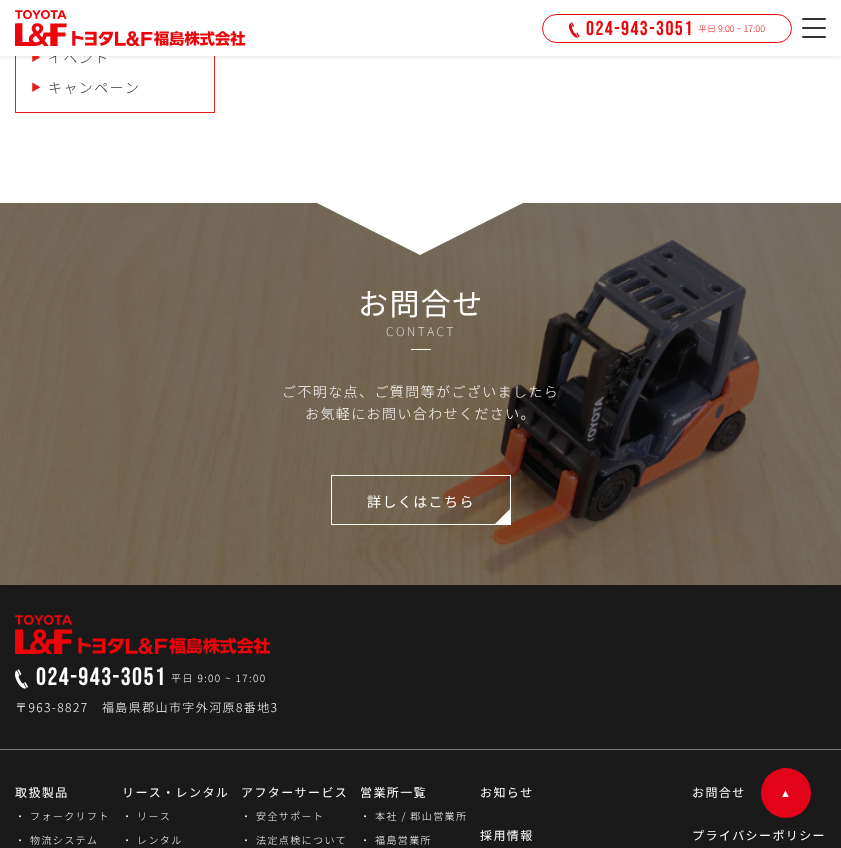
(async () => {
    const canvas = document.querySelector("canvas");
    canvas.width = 841;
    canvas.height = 848;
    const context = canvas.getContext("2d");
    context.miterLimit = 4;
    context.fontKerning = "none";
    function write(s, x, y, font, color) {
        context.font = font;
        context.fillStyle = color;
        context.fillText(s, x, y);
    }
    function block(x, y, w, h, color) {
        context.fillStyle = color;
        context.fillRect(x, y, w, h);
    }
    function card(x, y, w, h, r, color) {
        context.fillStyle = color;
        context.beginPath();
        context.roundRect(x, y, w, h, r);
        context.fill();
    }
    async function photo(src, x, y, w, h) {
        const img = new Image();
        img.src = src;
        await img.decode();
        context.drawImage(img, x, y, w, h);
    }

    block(0, 0, 841, 848, "rgb(255, 255, 255)");
    context.strokeStyle = "rgb(227, 30, 23)";
    context.strokeRect(15.5, -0.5, 199, 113);
    context.fillStyle = "rgba(0, 0, 0, 0.1)";
    context.filter = "blur(2px)";
    context.beginPath();
    context.rect(0, 1, 841, 56);
    context.fill();
    context.filter = "none";
    context.letterSpacing = "1.4px";
    write("▶︎", 31, 61, "300 10px Noto Sans JP", "rgb(227, 30, 23)");
    write("イベント", 48, 63, "300 14px Noto Sans JP", "rgb(51, 51, 51)");
    block(0, 0, 841, 56, "rgb(255, 255, 255)");
    await photo("media/1.png", 15, 10, 230, 36);
    context.beginPath();
    context.roundRect(542.5, 14.5, 249, 28, 14);
    context.strokeStyle = "rgb(236, 4, 10)";
    context.stroke();
    await photo("media/2.png", 569, 22, 11, 16);
    write("024-943-3051", 586, 35, "20px Bebas Neue", "rgb(236, 4, 10)");
    context.letterSpacing = "0px";
    write("平日 9:00 ~ 17:00", 698, 32, "300 9px Noto Sans JP", "rgb(236, 4, 10)");
    card(802, 18, 24, 2, 1, "rgb(51, 51, 51)");
    card(802, 27, 24, 2, 1, "rgb(51, 51, 51)");
    card(802, 36, 24, 2, 1, "rgb(51, 51, 51)");
    context.letterSpacing = "1.4px";
    write("▶︎", 31, 91, "300 10px Noto Sans JP", "rgb(227, 30, 23)");
    write("キャンペーン", 48, 93, "300 14px Noto Sans JP", "rgb(51, 51, 51)");
    await photo("media/3.png", 0, 203, 841, 382);
    context.fillStyle = "rgb(255, 255, 255)";
    context.beginPath();
    context.moveTo(420, 255);
    context.lineTo(315, 202);
    context.lineTo(525, 202);
    context.closePath();
    context.fill();
    write("お問合せ", 358, 315, "30px Noto Sans JP", "rgb(255, 255, 255)");
    context.letterSpacing = "2.5px";
    write("CONTACT", 386, 336, "100 12px Noto Sans JP", "rgb(255, 255, 255)");
    block(411, 349, 20, 1, "rgb(255, 255, 255)");
    context.letterSpacing = "1.4px";
    write("ご不明な点、ご質問等がございましたら", 282, 397, "300 14px Noto Sans JP", "rgb(255, 255, 255)");
    write("お気軽にお問い合わせください。", 305, 419, "300 14px Noto Sans JP", "rgb(255, 255, 255)");
    context.strokeStyle = "rgb(255, 255, 255)";
    context.strokeRect(331.5, 475.5, 179, 49);
    write("詳しくはこちら", 367, 507, "14px Noto Sans JP", "rgb(255, 255, 255)");
    context.beginPath();
    context.moveTo(510, 509);
    context.lineTo(510, 524);
    context.lineTo(495, 524);
    context.closePath();
    context.fill();
    block(0, 585, 841, 263, "rgb(26, 26, 26)");
    await photo("media/4.png", 15, 615, 255, 39);
    await photo("media/5.png", 15, 669, 13, 20);
    write("024-943-3051", 36, 685, "25px Bebas Neue", "rgb(255, 255, 255)");
    write("平日 9:00 ~ 17:00", 171, 682, "300 10px Noto Sans JP", "rgb(255, 255, 255)");
    write("〒963-8827　福島県郡山市字外河原8番地3", 15, 712, "300 12px Noto Sans JP", "rgb(255, 255, 255)");
    block(0, 749, 841, 1, "rgb(122, 123, 123)");
    write("取扱製品", 15, 797, "12px Noto Sans JP", "rgb(255, 255, 255)");
    write("・ フォークリフト", 15, 820, "300 10px Noto Sans JP", "rgb(255, 255, 255)");
    write("・ 物流システム", 15, 844, "300 10px Noto Sans JP", "rgb(255, 255, 255)");
    write("リース・レンタル", 122, 797, "12px Noto Sans JP", "rgb(255, 255, 255)");
    write("・ リース", 122, 820, "300 10px Noto Sans JP", "rgb(255, 255, 255)");
    write("・ レンタル", 122, 844, "300 10px Noto Sans JP", "rgb(255, 255, 255)");
    write("アフターサービス", 241, 797, "12px Noto Sans JP", "rgb(255, 255, 255)");
    write("・ 安全サポート", 241, 820, "300 10px Noto Sans JP", "rgb(255, 255, 255)");
    write("・ 法定点検について", 241, 844, "300 10px Noto Sans JP", "rgb(255, 255, 255)");
    write("営業所一覧", 360, 797, "12px Noto Sans JP", "rgb(255, 255, 255)");
    write("・ 本社 / 郡山営業所", 360, 820, "300 10px Noto Sans JP", "rgb(255, 255, 255)");
    write("・ 福島営業所", 360, 844, "300 10px Noto Sans JP", "rgb(255, 255, 255)");
    write("お知らせ", 480, 797, "12px Noto Sans JP", "rgb(255, 255, 255)");
    write("採用情報", 480, 840, "12px Noto Sans JP", "rgb(255, 255, 255)");
    write("お問合せ", 692, 797, "12px Noto Sans JP", "rgb(255, 255, 255)");
    write("プライバシーポリシー", 692, 840, "12px Noto Sans JP", "rgb(255, 255, 255)");
    context.fillStyle = "rgb(227, 3, 25)";
    context.beginPath();
    context.arc(786, 793, 25, 0, Math.PI * 2);
    context.fill();
    context.letterSpacing = "0px";
    write("▲", 780, 797, "11px Liberation Sans", "rgb(255, 255, 255)");
})();
